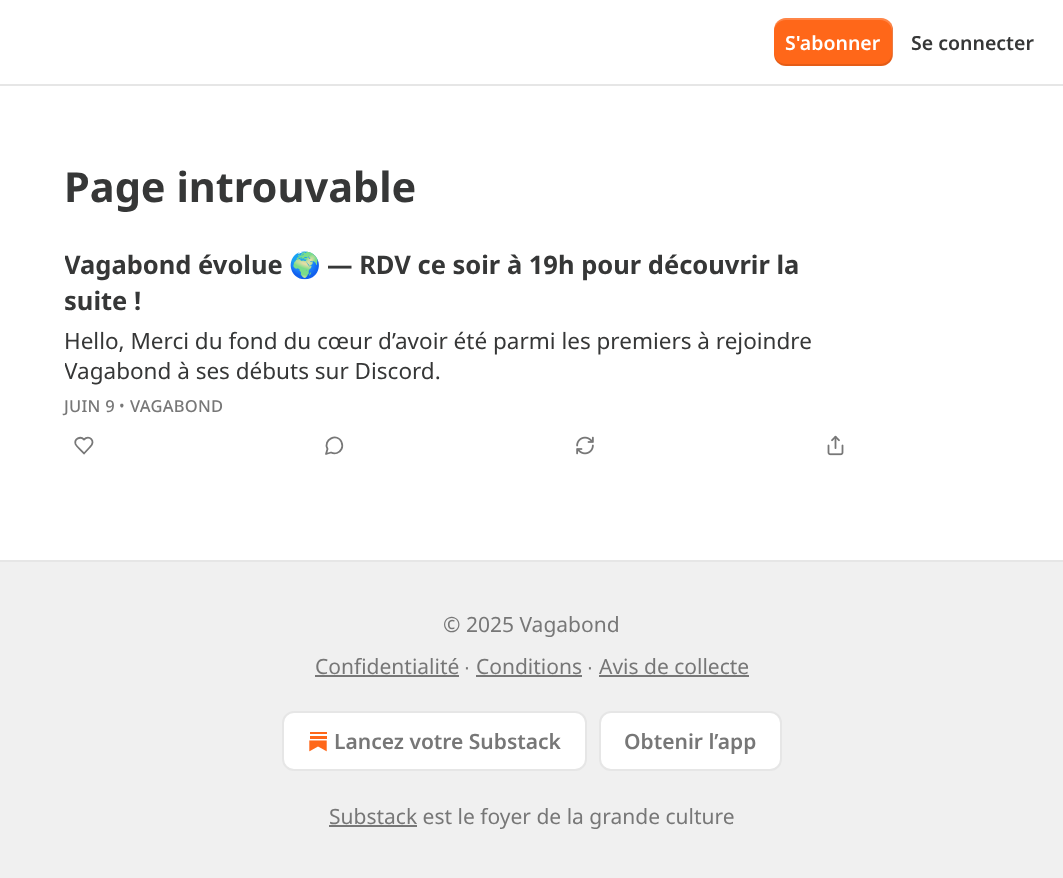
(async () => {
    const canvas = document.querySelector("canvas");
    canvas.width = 1063;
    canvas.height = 878;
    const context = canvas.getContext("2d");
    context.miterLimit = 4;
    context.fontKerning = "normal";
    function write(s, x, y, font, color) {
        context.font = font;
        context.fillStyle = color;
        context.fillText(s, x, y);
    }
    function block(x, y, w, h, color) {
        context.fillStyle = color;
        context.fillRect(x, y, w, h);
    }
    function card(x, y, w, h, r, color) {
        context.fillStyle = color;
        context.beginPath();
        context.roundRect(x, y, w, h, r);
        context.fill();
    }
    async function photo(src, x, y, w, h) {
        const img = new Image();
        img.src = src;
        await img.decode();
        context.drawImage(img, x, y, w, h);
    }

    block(0, 0, 1063, 878, "rgb(255, 255, 255)");
    block(0, 84, 1063, 2, "rgb(230, 230, 230)");
    card(774, 18, 119, 48, 12, "rgb(255, 103, 25)");
    context.fillStyle = "rgba(0, 0, 0, 0.1)";
    context.beginPath();
    context.moveTo(774, 52);
    context.lineTo(774, 54);
    context.bezierCurveTo(774, 61, 779, 66, 786, 66);
    context.lineTo(881, 66);
    context.bezierCurveTo(888, 66, 893, 61, 893, 54);
    context.lineTo(893, 30);
    context.bezierCurveTo(893, 28, 892, 25, 891, 23);
    context.lineTo(892, 28);
    context.lineTo(892, 52);
    context.bezierCurveTo(892, 59, 887, 64, 880, 64);
    context.lineTo(786, 64);
    context.bezierCurveTo(779, 64, 774, 59, 774, 52);
    context.closePath();
    context.fill();
    context.fillStyle = "rgba(255, 255, 255, 0.2)";
    context.beginPath();
    context.moveTo(786, 20);
    context.lineTo(880, 20);
    context.bezierCurveTo(887, 20, 892, 25, 892, 32);
    context.lineTo(892, 56);
    context.lineTo(891, 61);
    context.bezierCurveTo(892, 59, 893, 56, 893, 54);
    context.lineTo(893, 30);
    context.bezierCurveTo(893, 23, 888, 18, 881, 18);
    context.lineTo(786, 18);
    context.bezierCurveTo(779, 18, 774, 23, 774, 30);
    context.lineTo(774, 32);
    context.bezierCurveTo(774, 25, 779, 20, 786, 20);
    context.closePath();
    context.fill();
    write("S'abonner", 785, 50, "600 19.5px Noto Sans", "rgb(255, 255, 255)");
    write("Se connecter", 911, 50, "600 19.5px Noto Sans", "rgb(54, 55, 55)");
    write("Page introuvable", 64, 202, "bold 41.5px Noto Sans", "rgb(54, 55, 55)");
    context.save();
    context.beginPath();
    context.rect(65, 248, 792, 72);
    context.clip();
    write("Vagabond évolue", 64, 274, "bold 25.5px Noto Sans", "rgb(54, 55, 55)");
    context.restore();
    write("🌍", 289, 274, "bold 25.5px Noto Color Emoji", "rgb(54, 55, 55)");
    write("— RDV ce soir à 19h pour découvrir la", 327, 274, "bold 25.5px Noto Sans", "rgb(54, 55, 55)");
    write("suite !", 64, 310, "bold 25.5px Noto Sans", "rgb(54, 55, 55)");
    write("Hello, Merci du fond du cœur d’avoir été parmi les premiers à rejoindre", 64, 349, "22.5px Noto Sans", "rgb(54, 55, 55)");
    context.save();
    context.beginPath();
    context.rect(65, 326, 792, 60);
    context.clip();
    write("Vagabond à ses débuts sur Discord.", 64, 379, "22.5px Noto Sans", "rgb(54, 55, 55)");
    context.restore();
    context.letterSpacing = "0.25px";
    write("JUIN 9", 64, 412, "500 16.5px Noto Sans", "rgb(119, 119, 119)");
    write("•", 119, 411, "15px Noto Sans", "rgb(119, 119, 119)");
    write("VAGABOND", 130, 412, "500 16.5px Noto Sans", "rgb(119, 119, 119)");
    context.beginPath();
    context.moveTo(90, 447);
    context.bezierCurveTo(96.5, 441, 89, 434.5, 84, 439.5);
    context.bezierCurveTo(80.5, 436, 74, 438.5, 75.5, 444);
    context.bezierCurveTo(76.5, 446.5, 82, 451, 84, 453.5);
    context.closePath();
    context.strokeStyle = "rgb(119, 119, 119)";
    context.lineWidth = 1.8;
    context.lineCap = "round";
    context.lineJoin = "round";
    context.stroke();
    context.beginPath();
    context.moveTo(331, 452.5);
    context.bezierCurveTo(335, 454.5, 339.5, 453, 341.5, 449);
    context.bezierCurveTo(342.5, 447, 342.5, 444.5, 341.5, 442);
    context.bezierCurveTo(337.5, 432.5, 322.5, 439.5, 327.5, 449);
    context.lineTo(326, 454);
    context.closePath();
    context.stroke();
    await photo("media/1.png", 576, 436, 18, 19);
    await photo("media/2.png", 827, 435, 17, 21);
    block(0, 562, 1063, 316, "rgb(240, 240, 240)");
    block(0, 560, 1063, 2, "rgb(230, 230, 230)");
    context.letterSpacing = "0px";
    write("© 2025 Vagabond", 443, 632, "21px Noto Sans", "rgb(119, 119, 119)");
    write("Confidentialité", 315, 674, "21px Noto Sans", "rgb(119, 119, 119)");
    block(315, 675, 144, 2, "rgb(119, 119, 119)");
    write("∙", 464, 674, "21px Liberation Sans", "rgb(119, 119, 119)");
    write("Conditions", 476, 674, "21px Noto Sans", "rgb(119, 119, 119)");
    block(476, 675, 106, 2, "rgb(119, 119, 119)");
    write("∙", 587, 674, "21px Liberation Sans", "rgb(119, 119, 119)");
    write("Avis de collecte", 599, 674, "21px Noto Sans", "rgb(119, 119, 119)");
    block(599, 675, 150, 2, "rgb(119, 119, 119)");
    context.fillStyle = "rgb(255, 255, 255)";
    context.beginPath();
    context.roundRect(283, 712, 303, 58, 11);
    context.fill();
    context.strokeStyle = "rgb(230, 230, 230)";
    context.lineWidth = 2;
    context.lineJoin = "miter";
    context.stroke();
    await photo("media/3.png", 309, 732, 18, 20);
    write("Lancez votre Substack", 334, 749, "600 21px Noto Sans", "rgb(119, 119, 119)");
    context.fillStyle = "rgb(255, 255, 255)";
    context.beginPath();
    context.roundRect(600, 712, 181, 58, 11);
    context.fill();
    context.stroke();
    write("Obtenir l’app", 624, 749, "600 21px Noto Sans", "rgb(119, 119, 119)");
    block(329, 825, 88, 2, "rgb(119, 119, 119)");
    write("Substack est le foyer de la grande culture", 329, 824, "21px Noto Sans", "rgb(119, 119, 119)");
})();
